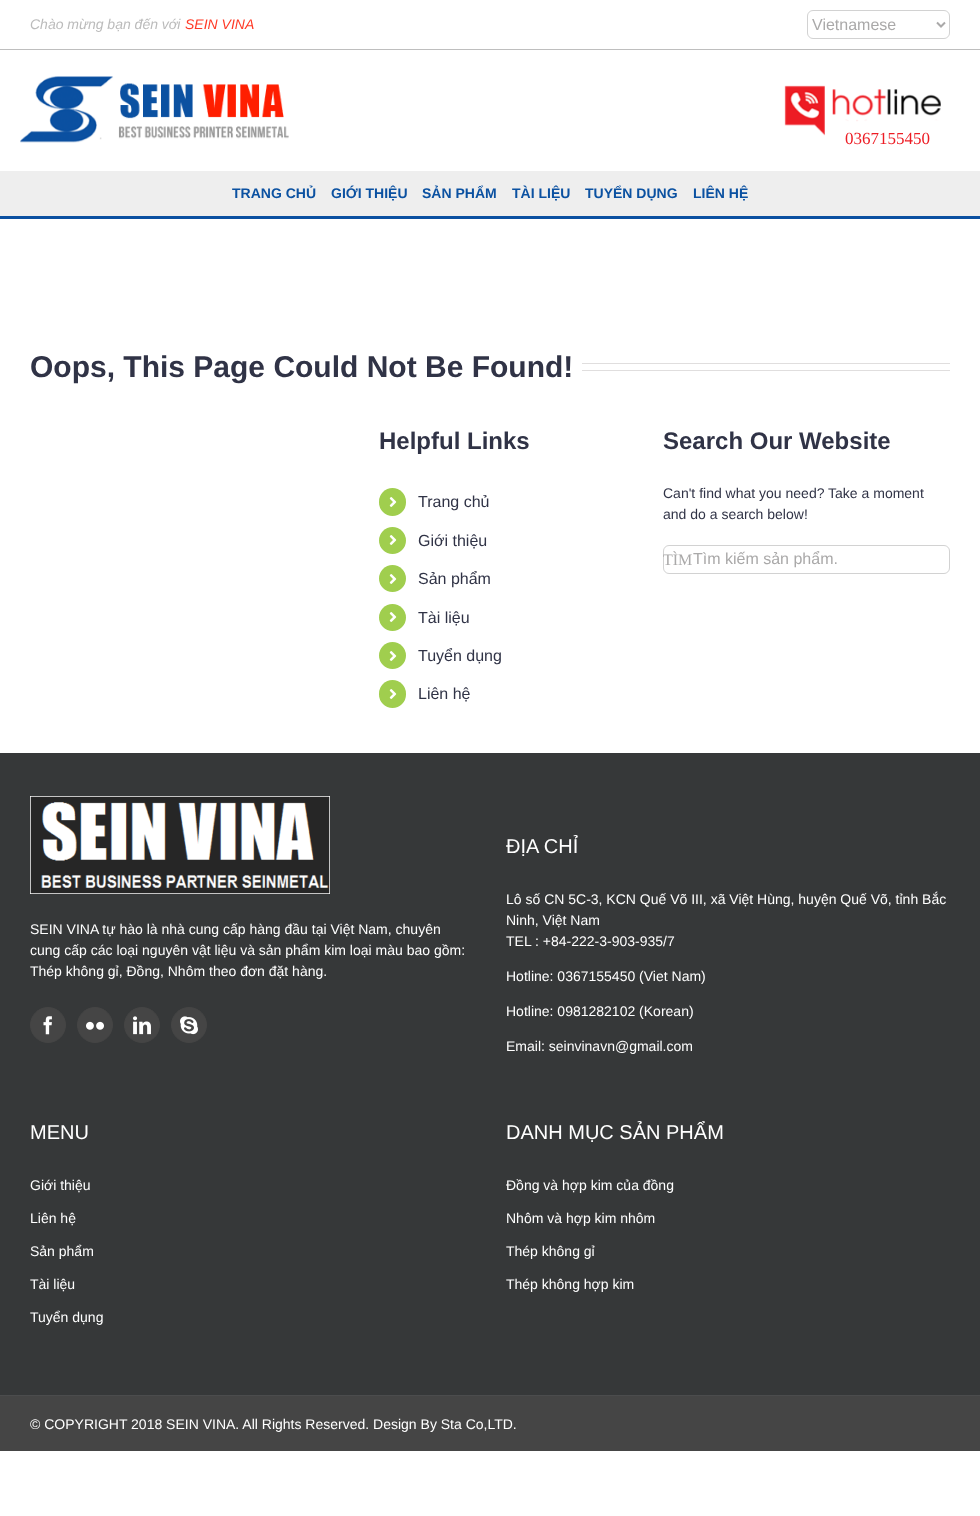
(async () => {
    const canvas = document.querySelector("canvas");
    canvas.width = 980;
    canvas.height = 1516;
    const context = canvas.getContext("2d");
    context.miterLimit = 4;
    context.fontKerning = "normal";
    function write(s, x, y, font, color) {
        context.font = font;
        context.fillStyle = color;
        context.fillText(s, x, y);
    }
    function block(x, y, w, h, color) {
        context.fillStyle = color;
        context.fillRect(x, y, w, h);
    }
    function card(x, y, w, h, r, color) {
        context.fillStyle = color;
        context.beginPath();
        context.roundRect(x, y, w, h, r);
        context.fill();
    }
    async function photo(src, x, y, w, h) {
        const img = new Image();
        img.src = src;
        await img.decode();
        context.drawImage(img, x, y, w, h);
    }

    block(0, 0, 980, 1516, "rgb(255, 255, 255)");
    block(0, 49, 980, 1, "rgb(190, 190, 190)");
    write("Chào mừng bạn đến với", 30, 29, "italic 14px Liberation Sans", "rgb(187, 187, 187)");
    write("SEIN VINA", 185, 29, "italic 14px Liberation Sans", "rgb(255, 58, 38)");
    context.beginPath();
    context.roundRect(807.5, 10.5, 142, 28, 5.5);
    context.strokeStyle = "rgb(210, 210, 210)";
    context.stroke();
    context.beginPath();
    context.moveTo(937, 22.5);
    context.lineTo(941, 26.5);
    context.lineTo(945, 22.5);
    context.strokeStyle = "rgb(170, 169, 169)";
    context.lineWidth = 2;
    context.stroke();
    write("Vietnamese", 812, 30, "16px Liberation Sans", "rgb(170, 169, 169)");
    await photo("media/1.png", 20, 76, 269, 67);
    await photo("media/2.png", 784, 85, 157, 51);
    write("0367155450", 845, 144, "17px Liberation Serif", "rgb(237, 28, 36)");
    block(0, 171, 980, 45, "rgb(238, 238, 238)");
    block(0, 216, 980, 3, "rgb(11, 80, 161)");
    write("TRANG CHỦ", 232, 198, "bold 14px Liberation Sans", "rgb(11, 81, 161)");
    write("GIỚI THIỆU", 331, 198, "bold 14px Liberation Sans", "rgb(11, 81, 161)");
    write("SẢN PHẨM", 422, 198, "bold 14px Liberation Sans", "rgb(11, 81, 161)");
    write("TÀI LIỆU", 512, 198, "bold 14px Liberation Sans", "rgb(11, 81, 161)");
    write("TUYỂN DỤNG", 585, 198, "bold 14px Liberation Sans", "rgb(11, 81, 161)");
    write("LIÊN HỆ", 693, 198, "bold 14px Liberation Sans", "rgb(11, 81, 161)");
    write("Oops, This Page Could Not Be Found!", 30, 377, "bold 30px Liberation Sans", "rgb(48, 51, 70)");
    block(582, 363, 368, 1, "rgb(224, 222, 222)");
    block(582, 370, 368, 1, "rgb(224, 222, 222)");
    write("Helpful Links", 379, 449, "bold 24px Liberation Sans", "rgb(48, 51, 70)");
    card(379, 488, 27, 28, 13.5, "rgb(160, 206, 78)");
    await photo("media/3.png", 389, 497, 8, 10);
    write("Trang chủ", 418, 507, "16px Liberation Sans", "rgb(48, 51, 70)");
    context.fillStyle = "rgb(160, 206, 78)";
    context.beginPath();
    context.arc(392.5, 540.5, 13.5, 0, Math.PI * 2);
    context.fill();
    await photo("media/3.png", 389, 535, 8, 10);
    write("Giới thiệu", 418, 546, "16px Liberation Sans", "rgb(48, 51, 70)");
    context.fillStyle = "rgb(160, 206, 78)";
    context.beginPath();
    context.arc(392.5, 578.5, 13.5, 0, Math.PI * 2);
    context.fill();
    await photo("media/3.png", 389, 574, 8, 10);
    write("Sản phẩm", 418, 584, "16px Liberation Sans", "rgb(48, 51, 70)");
    context.fillStyle = "rgb(160, 206, 78)";
    context.beginPath();
    context.arc(392.5, 617.5, 13.5, 0, Math.PI * 2);
    context.fill();
    await photo("media/3.png", 389, 612, 8, 10);
    write("Tài liệu", 418, 623, "16px Liberation Sans", "rgb(48, 51, 70)");
    context.fillStyle = "rgb(160, 206, 78)";
    context.beginPath();
    context.arc(392.5, 655.5, 13.5, 0, Math.PI * 2);
    context.fill();
    await photo("media/3.png", 389, 651, 8, 10);
    write("Tuyển dụng", 418, 661, "16px Liberation Sans", "rgb(48, 51, 70)");
    card(379, 680, 27, 28, 13.5, "rgb(160, 206, 78)");
    await photo("media/3.png", 389, 689, 8, 10);
    write("Liên hệ", 418, 699, "16px Liberation Sans", "rgb(48, 51, 70)");
    write("Search Our Website", 663, 449, "bold 24px Liberation Sans", "rgb(48, 51, 70)");
    write("Can't find what you need? Take a moment", 663, 498, "14px Liberation Sans", "rgb(48, 51, 70)");
    write("and do a search below!", 663, 519, "14px Liberation Sans", "rgb(48, 51, 70)");
    context.beginPath();
    context.roundRect(663.5, 545.5, 286, 28, 5.5);
    context.strokeStyle = "rgb(210, 210, 210)";
    context.lineWidth = 1;
    context.stroke();
    context.wordSpacing = "-4px";
    write("TÌM ", 663, 565, "16px Liberation Serif", "rgb(170, 169, 169)");
    context.wordSpacing = "0px";
    write("Tìm kiếm sản phẩm.", 693, 564, "16px Liberation Sans", "rgb(170, 169, 169)");
    block(0, 753, 980, 642, "rgb(54, 56, 57)");
    await photo("media/4.png", 30, 796, 300, 98);
    write("SEIN VINA tự hào là nhà cung cấp hàng đầu tại Việt Nam, chuyên", 30, 934, "14px Liberation Sans", "rgb(255, 255, 255)");
    write("cung cấp các loại nguyên vật liệu và sản phẩm kim loại màu bao gồm:", 30, 955, "14px Liberation Sans", "rgb(255, 255, 255)");
    write("Thép không gỉ, Đồng, Nhôm theo đơn đặt hàng.", 30, 976, "14px Liberation Sans", "rgb(255, 255, 255)");
    context.fillStyle = "rgb(69, 69, 69)";
    context.beginPath();
    context.arc(48, 1025, 17.5, 0, Math.PI * 2);
    context.fill();
    context.strokeStyle = "rgb(69, 69, 69)";
    context.stroke();
    await photo("media/5.png", 43, 1016, 9, 19);
    context.beginPath();
    context.arc(95, 1025, 17.5, 0, Math.PI * 2);
    context.fill();
    context.stroke();
    await photo("media/6.png", 86, 1021, 18, 9);
    context.beginPath();
    context.arc(142, 1025, 17.5, 0, Math.PI * 2);
    context.fill();
    context.stroke();
    await photo("media/7.png", 133, 1016, 18, 19);
    context.beginPath();
    context.arc(189, 1025, 17.5, 0, Math.PI * 2);
    context.fill();
    context.stroke();
    await photo("media/8.png", 180, 1016, 18, 19);
    write("ĐỊA CHỈ", 506, 853, "20px Liberation Sans", "rgb(255, 255, 255)");
    write("Lô số CN 5C-3, KCN Quế Võ III, xã Việt Hùng, huyện Quế Võ, tỉnh Bắc", 506, 904, "14px Liberation Sans", "rgb(255, 255, 255)");
    write("Ninh, Việt Nam", 506, 925, "14px Liberation Sans", "rgb(255, 255, 255)");
    write("TEL : +84-222-3-903-935/7", 506, 946, "14px Liberation Sans", "rgb(255, 255, 255)");
    write("Hotline: 0367155450 (Viet Nam)", 506, 981, "14px Liberation Sans", "rgb(255, 255, 255)");
    write("Hotline: 0981282102 (Korean)", 506, 1016, "14px Liberation Sans", "rgb(255, 255, 255)");
    write("Email: seinvinavn@gmail.com", 506, 1051, "14px Liberation Sans", "rgb(255, 255, 255)");
    write("MENU", 30, 1139, "20px Liberation Sans", "rgb(255, 255, 255)");
    write("Giới thiệu", 30, 1190, "14px Liberation Sans", "rgb(255, 255, 255)");
    write("Liên hệ", 30, 1223, "14px Liberation Sans", "rgb(255, 255, 255)");
    write("Sản phẩm", 30, 1256, "14px Liberation Sans", "rgb(255, 255, 255)");
    write("Tài liệu", 30, 1289, "14px Liberation Sans", "rgb(255, 255, 255)");
    write("Tuyển dụng", 30, 1322, "14px Liberation Sans", "rgb(255, 255, 255)");
    write("DANH MỤC SẢN PHẨM", 506, 1139, "20px Liberation Sans", "rgb(255, 255, 255)");
    write("Đồng và hợp kim của đồng", 506, 1190, "14px Liberation Sans", "rgb(255, 255, 255)");
    write("Nhôm và hợp kim nhôm", 506, 1223, "14px Liberation Sans", "rgb(255, 255, 255)");
    write("Thép không gỉ", 506, 1256, "14px Liberation Sans", "rgb(255, 255, 255)");
    write("Thép không hợp kim", 506, 1289, "14px Liberation Sans", "rgb(255, 255, 255)");
    block(0, 1396, 980, 55, "rgb(69, 69, 69)");
    block(0, 1395, 980, 1, "rgb(75, 76, 77)");
    write("© COPYRIGHT 2018 SEIN VINA. All Rights Reserved. Design By Sta Co,LTD.", 30, 1429, "14px Liberation Sans", "rgb(255, 255, 255)");
})();
